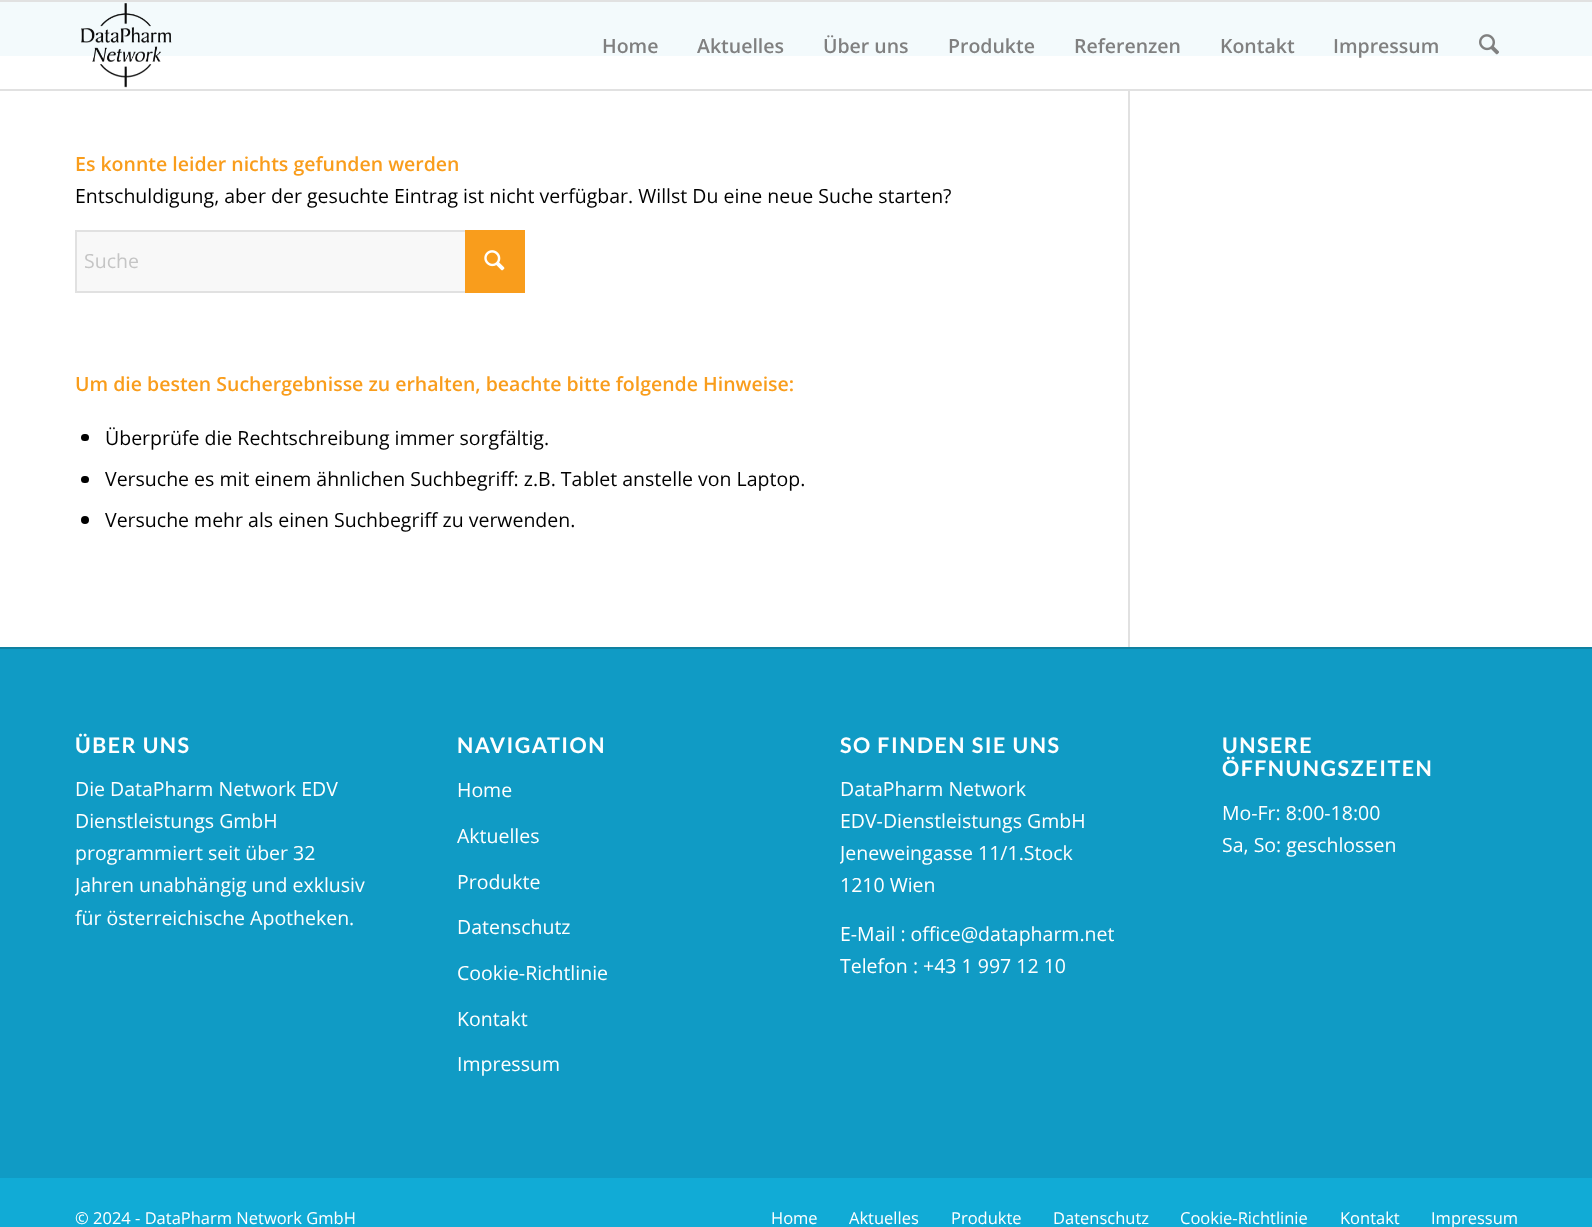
(async () => {
    const canvas = document.querySelector("canvas");
    canvas.width = 1592;
    canvas.height = 1227;
    const context = canvas.getContext("2d");
    context.miterLimit = 4;
    context.fontKerning = "normal";
    function write(s, x, y, font, color) {
        context.font = font;
        context.fillStyle = color;
        context.fillText(s, x, y);
    }
    function block(x, y, w, h, color) {
        context.fillStyle = color;
        context.fillRect(x, y, w, h);
    }
    function card(x, y, w, h, r, color) {
        context.fillStyle = color;
        context.beginPath();
        context.roundRect(x, y, w, h, r);
        context.fill();
    }
    async function photo(src, x, y, w, h) {
        const img = new Image();
        img.src = src;
        await img.decode();
        context.drawImage(img, x, y, w, h);
    }

    block(0, 0, 1592, 1227, "rgb(255, 255, 255)");
    block(0, 0, 1592, 2, "rgb(225, 225, 225)");
    block(0, 89, 1592, 2, "rgb(225, 225, 225)");
    block(0, 2, 1592, 54, "rgb(243, 250, 252)");
    await photo("media/1.png", 81, 3, 91, 85);
    write("Home", 602, 53, "600 19.5px Open Sans", "rgb(128, 128, 128)");
    write("Aktuelles", 697, 53, "600 19.5px Open Sans", "rgb(128, 128, 128)");
    write("Über uns", 823, 53, "600 19.5px Open Sans", "rgb(128, 128, 128)");
    write("Produkte", 948, 53, "600 19.5px Open Sans", "rgb(128, 128, 128)");
    write("Referenzen", 1074, 53, "600 19.5px Open Sans", "rgb(128, 128, 128)");
    write("Kontakt", 1220, 53, "600 19.5px Open Sans", "rgb(128, 128, 128)");
    write("Impressum", 1333, 53, "600 19.5px Open Sans", "rgb(128, 128, 128)");
    await photo("media/2.png", 1479, 34, 20, 21);
    block(1128, 91, 2, 556, "rgb(225, 225, 225)");
    write("Es konnte leider nichts gefunden werden", 75, 171, "600 19.5px Open Sans", "rgb(249, 157, 28)");
    write("Entschuldigung, aber der gesuchte Eintrag ist nicht verfügbar. Willst Du eine neue Suche starten?", 75, 203, "19.5px Open Sans", "rgb(0, 0, 0)");
    block(77, 232, 388, 59, "rgb(248, 248, 248)");
    context.strokeStyle = "rgb(225, 225, 225)";
    context.lineWidth = 2;
    context.strokeRect(76, 231, 448, 61);
    block(465, 230, 60, 63, "rgb(249, 157, 28)");
    write("Suche", 84, 268, "19.5px Open Sans", "rgb(197, 197, 197)");
    await photo("media/3.png", 484, 250, 21, 21);
    write("Um die besten Suchergebnisse zu erhalten, beachte bitte folgende Hinweise:", 75, 391, "600 19.5px Open Sans", "rgb(249, 157, 28)");
    card(81, 434, 8, 7, 3.5, "rgb(0, 0, 0)");
    write("Überprüfe die Rechtschreibung immer sorgfältig.", 105, 445, "19.5px Open Sans", "rgb(0, 0, 0)");
    card(81, 476, 8, 7, 3.5, "rgb(0, 0, 0)");
    write("Versuche es mit einem ähnlichen Suchbegriff: z.B. Tablet anstelle von Laptop.", 105, 486, "19.5px Open Sans", "rgb(0, 0, 0)");
    context.beginPath();
    context.arc(85, 520, 4, 0, Math.PI * 2);
    context.fill();
    write("Versuche mehr als einen Suchbegriff zu verwenden.", 105, 527, "19.5px Open Sans", "rgb(0, 0, 0)");
    block(0, 649, 1592, 529, "rgb(16, 155, 197)");
    block(0, 647, 1592, 2, "rgb(15, 129, 161)");
    context.letterSpacing = "1.5px";
    write("ÜBER UNS", 75, 753, "bold 21.5px Lato", "rgb(255, 255, 255)");
    context.letterSpacing = "0px";
    write("Die DataPharm Network EDV", 75, 796, "19.5px Open Sans", "rgb(255, 255, 255)");
    write("Dienstleistungs GmbH", 75, 828, "19.5px Open Sans", "rgb(255, 255, 255)");
    write("programmiert seit über 32", 75, 860, "19.5px Open Sans", "rgb(255, 255, 255)");
    context.save();
    context.beginPath();
    context.rect(75, 716, 296, 235);
    context.clip();
    write("Jahren unabhängig und exklusiv", 75, 892, "19.5px Open Sans", "rgb(255, 255, 255)");
    context.restore();
    write("für österreichische Apotheken.", 75, 925, "19.5px Open Sans", "rgb(255, 255, 255)");
    context.letterSpacing = "1.5px";
    write("NAVIGATION", 457, 753, "bold 21.5px Lato", "rgb(255, 255, 255)");
    context.letterSpacing = "0px";
    write("Home", 457, 797, "19.5px Open Sans", "rgb(255, 255, 255)");
    write("Aktuelles", 457, 843, "19.5px Open Sans", "rgb(255, 255, 255)");
    write("Produkte", 457, 889, "19.5px Open Sans", "rgb(255, 255, 255)");
    write("Datenschutz", 457, 934, "19.5px Open Sans", "rgb(255, 255, 255)");
    write("Cookie-Richtlinie", 457, 980, "19.5px Open Sans", "rgb(255, 255, 255)");
    write("Kontakt", 457, 1026, "19.5px Open Sans", "rgb(255, 255, 255)");
    write("Impressum", 457, 1071, "19.5px Open Sans", "rgb(255, 255, 255)");
    context.letterSpacing = "1.5px";
    write("SO FINDEN SIE UNS", 840, 753, "bold 21.5px Lato", "rgb(255, 255, 255)");
    context.letterSpacing = "0px";
    write("DataPharm Network", 840, 796, "19.5px Open Sans", "rgb(255, 255, 255)");
    write("EDV-Dienstleistungs GmbH", 840, 828, "19.5px Open Sans", "rgb(255, 255, 255)");
    context.save();
    context.beginPath();
    context.rect(840, 716, 296, 283);
    context.clip();
    write("Jeneweingasse 11/1.Stock", 840, 860, "19.5px Open Sans", "rgb(255, 255, 255)");
    context.restore();
    write("1210 Wien", 840, 892, "19.5px Open Sans", "rgb(255, 255, 255)");
    write("E-Mail : office@datapharm.net", 840, 941, "19.5px Open Sans", "rgb(255, 255, 255)");
    write("Telefon : +43 1 997 12 10", 840, 973, "19.5px Open Sans", "rgb(255, 255, 255)");
    context.letterSpacing = "1.5px";
    write("UNSERE", 1222, 753, "bold 21.5px Lato", "rgb(255, 255, 255)");
    write("ÖFFNUNGSZEITEN", 1222, 776, "bold 21.5px Lato", "rgb(255, 255, 255)");
    context.letterSpacing = "0px";
    write("Mo-Fr: 8:00-18:00", 1222, 820, "19.5px Open Sans", "rgb(255, 255, 255)");
    write("Sa, So: geschlossen", 1222, 852, "19.5px Open Sans", "rgb(255, 255, 255)");
    block(0, 1178, 1592, 49, "rgb(17, 171, 214)");
    write("© 2024 - DataPharm Network GmbH", 75, 1224, "16.5px Open Sans", "rgb(255, 255, 255)");
    write("Home", 771, 1224, "16.5px Open Sans", "rgb(255, 255, 255)");
    write("Aktuelles", 849, 1224, "16.5px Open Sans", "rgb(255, 255, 255)");
    write("Produkte", 951, 1224, "16.5px Open Sans", "rgb(255, 255, 255)");
    write("Datenschutz", 1053, 1224, "16.5px Open Sans", "rgb(255, 255, 255)");
    write("Cookie-Richtlinie", 1180, 1224, "16.5px Open Sans", "rgb(255, 255, 255)");
    write("Kontakt", 1340, 1224, "16.5px Open Sans", "rgb(255, 255, 255)");
    write("Impressum", 1431, 1224, "16.5px Open Sans", "rgb(255, 255, 255)");
})();
